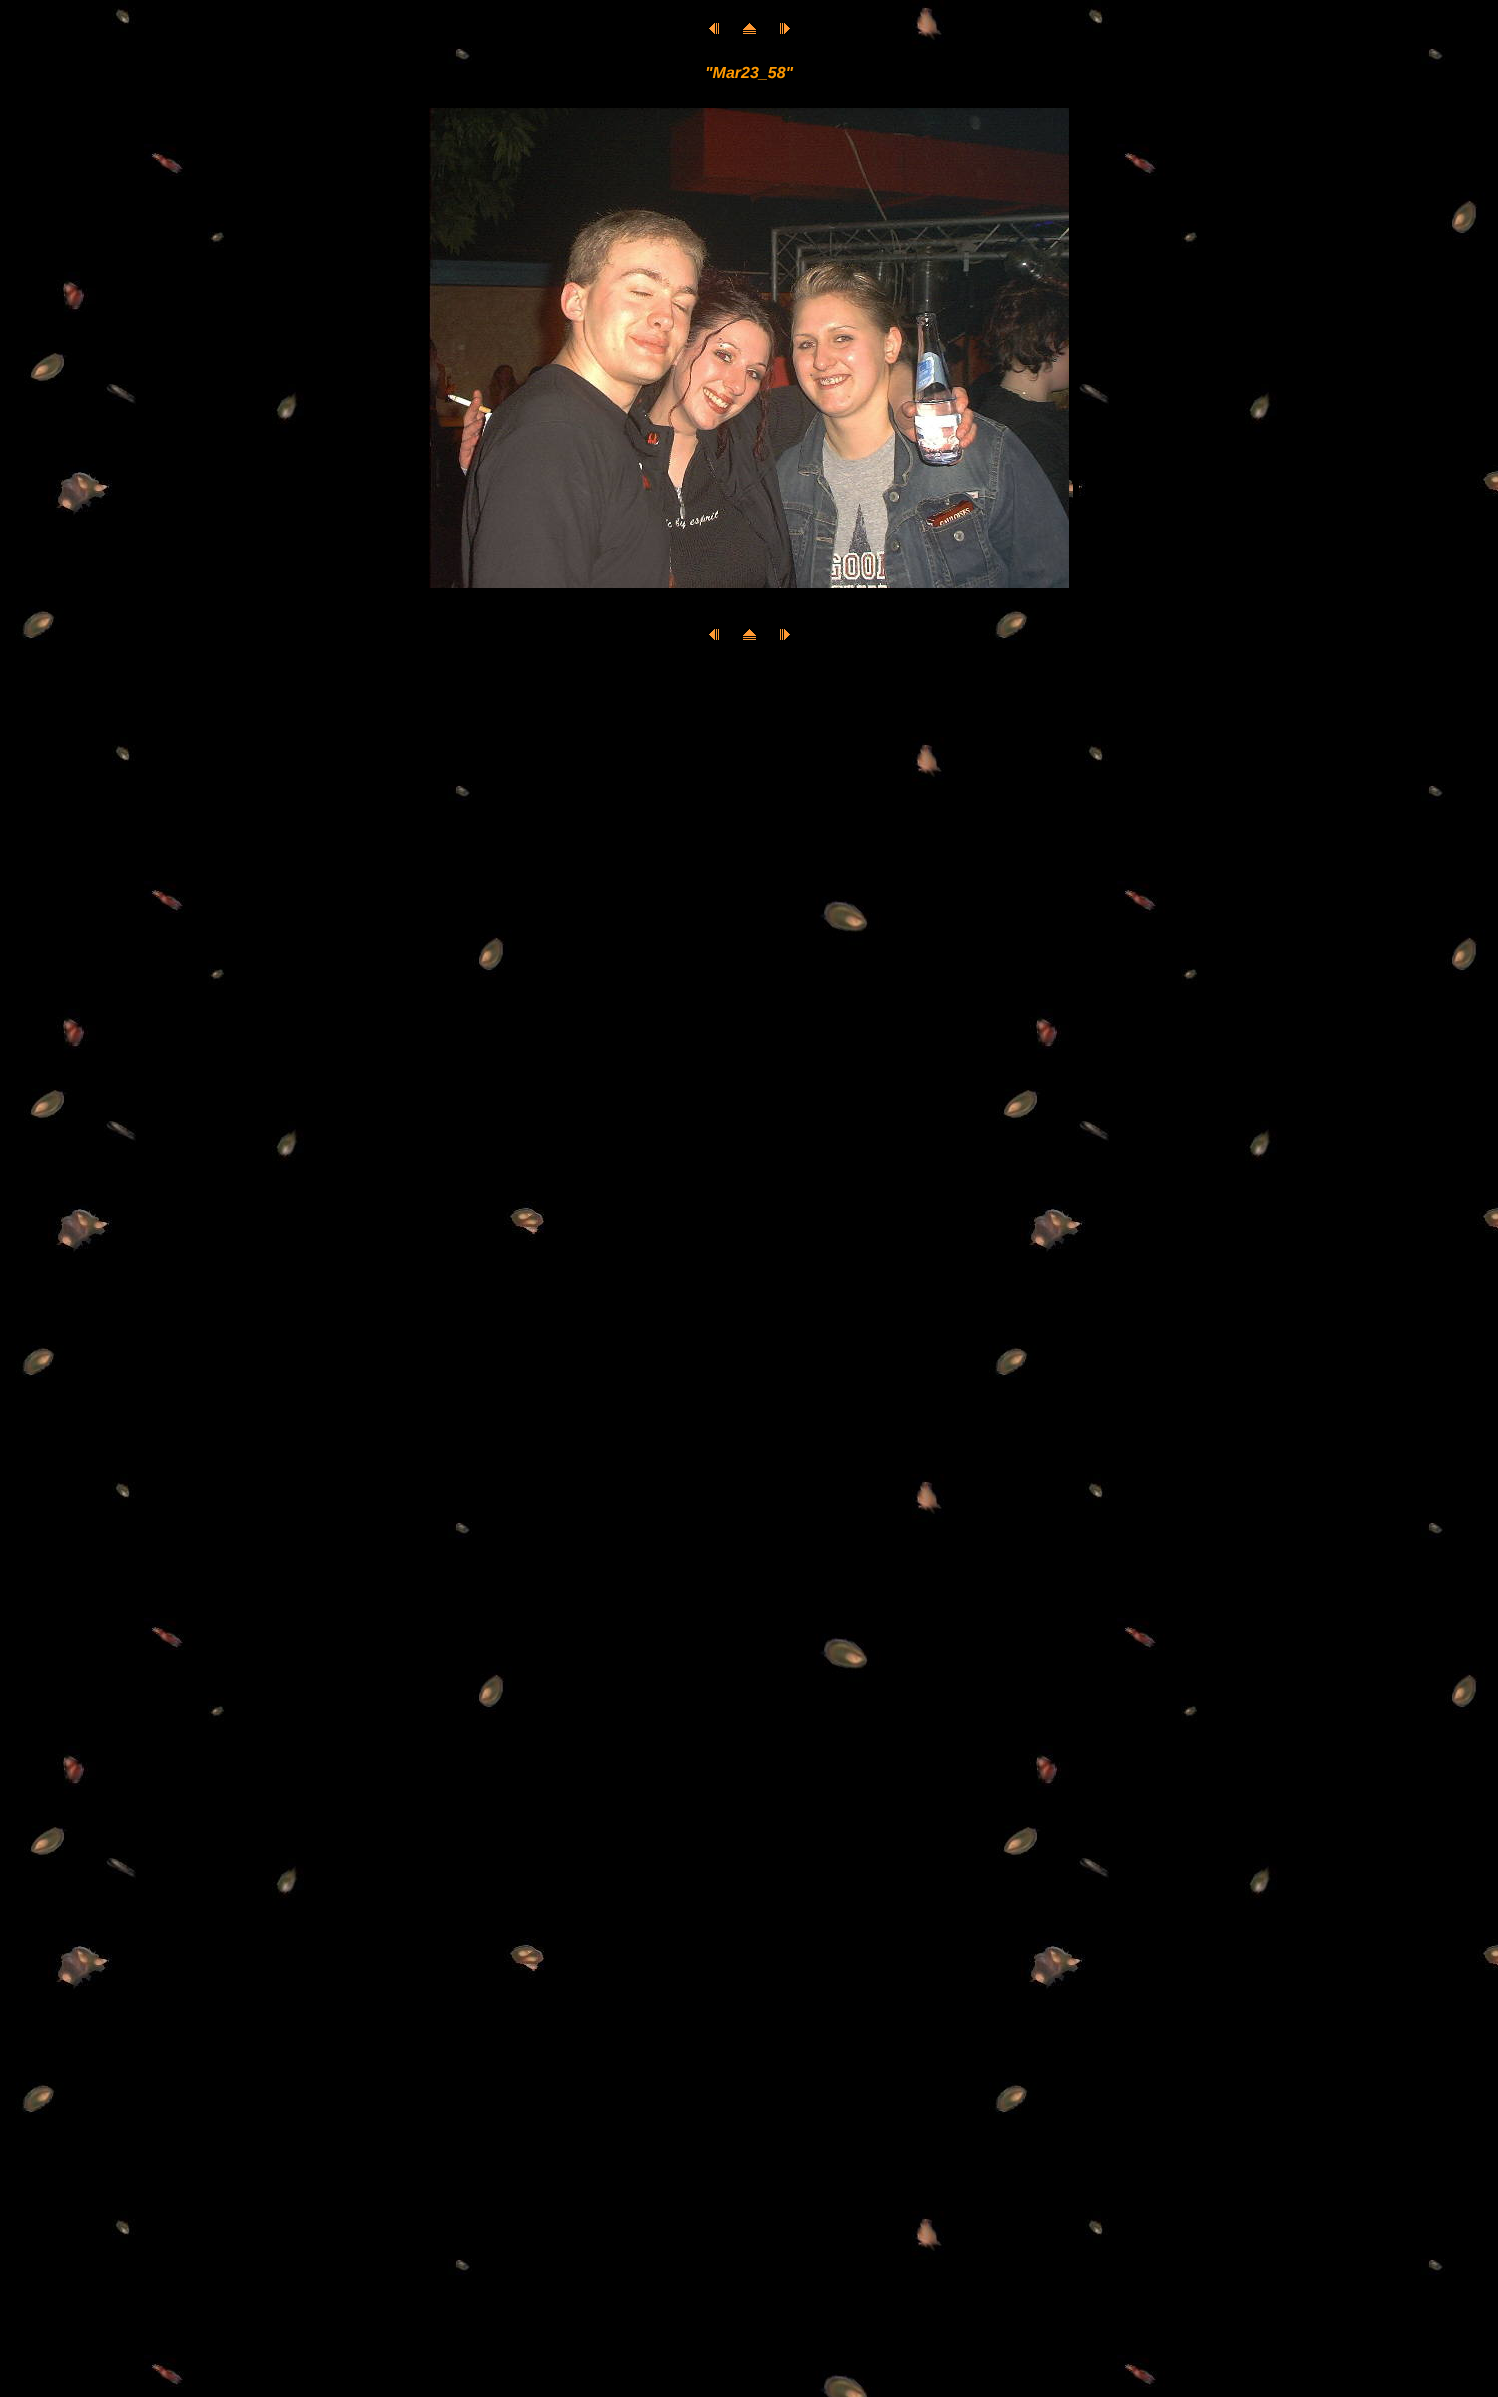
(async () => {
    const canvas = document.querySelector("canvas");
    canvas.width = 1498;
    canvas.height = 2397;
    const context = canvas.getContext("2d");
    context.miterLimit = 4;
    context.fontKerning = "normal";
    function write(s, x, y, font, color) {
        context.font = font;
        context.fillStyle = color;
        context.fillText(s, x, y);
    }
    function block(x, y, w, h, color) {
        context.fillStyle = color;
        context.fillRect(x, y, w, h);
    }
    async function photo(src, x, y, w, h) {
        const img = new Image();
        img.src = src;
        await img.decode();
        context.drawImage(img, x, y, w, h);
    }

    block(0, 0, 1498, 2397, "rgb(255, 255, 255)");
    await photo("media/1.png", 0, 0, 1498, 2397);
    await photo("media/2.png", 709, 23, 10, 11);
    await photo("media/3.png", 743, 23, 13, 11);
    await photo("media/4.png", 780, 23, 10, 11);
    write("\"Mar23_58\"", 705, 78, "italic bold 16px Liberation Sans", "rgb(255, 153, 0)");
    await photo("media/5.png", 429, 108, 640, 480);
    block(1073, 384, 6, 120, "rgb(0, 0, 0)");
    await photo("media/2.png", 709, 629, 10, 11);
    await photo("media/3.png", 743, 629, 13, 11);
    await photo("media/4.png", 780, 629, 10, 11);
})();
